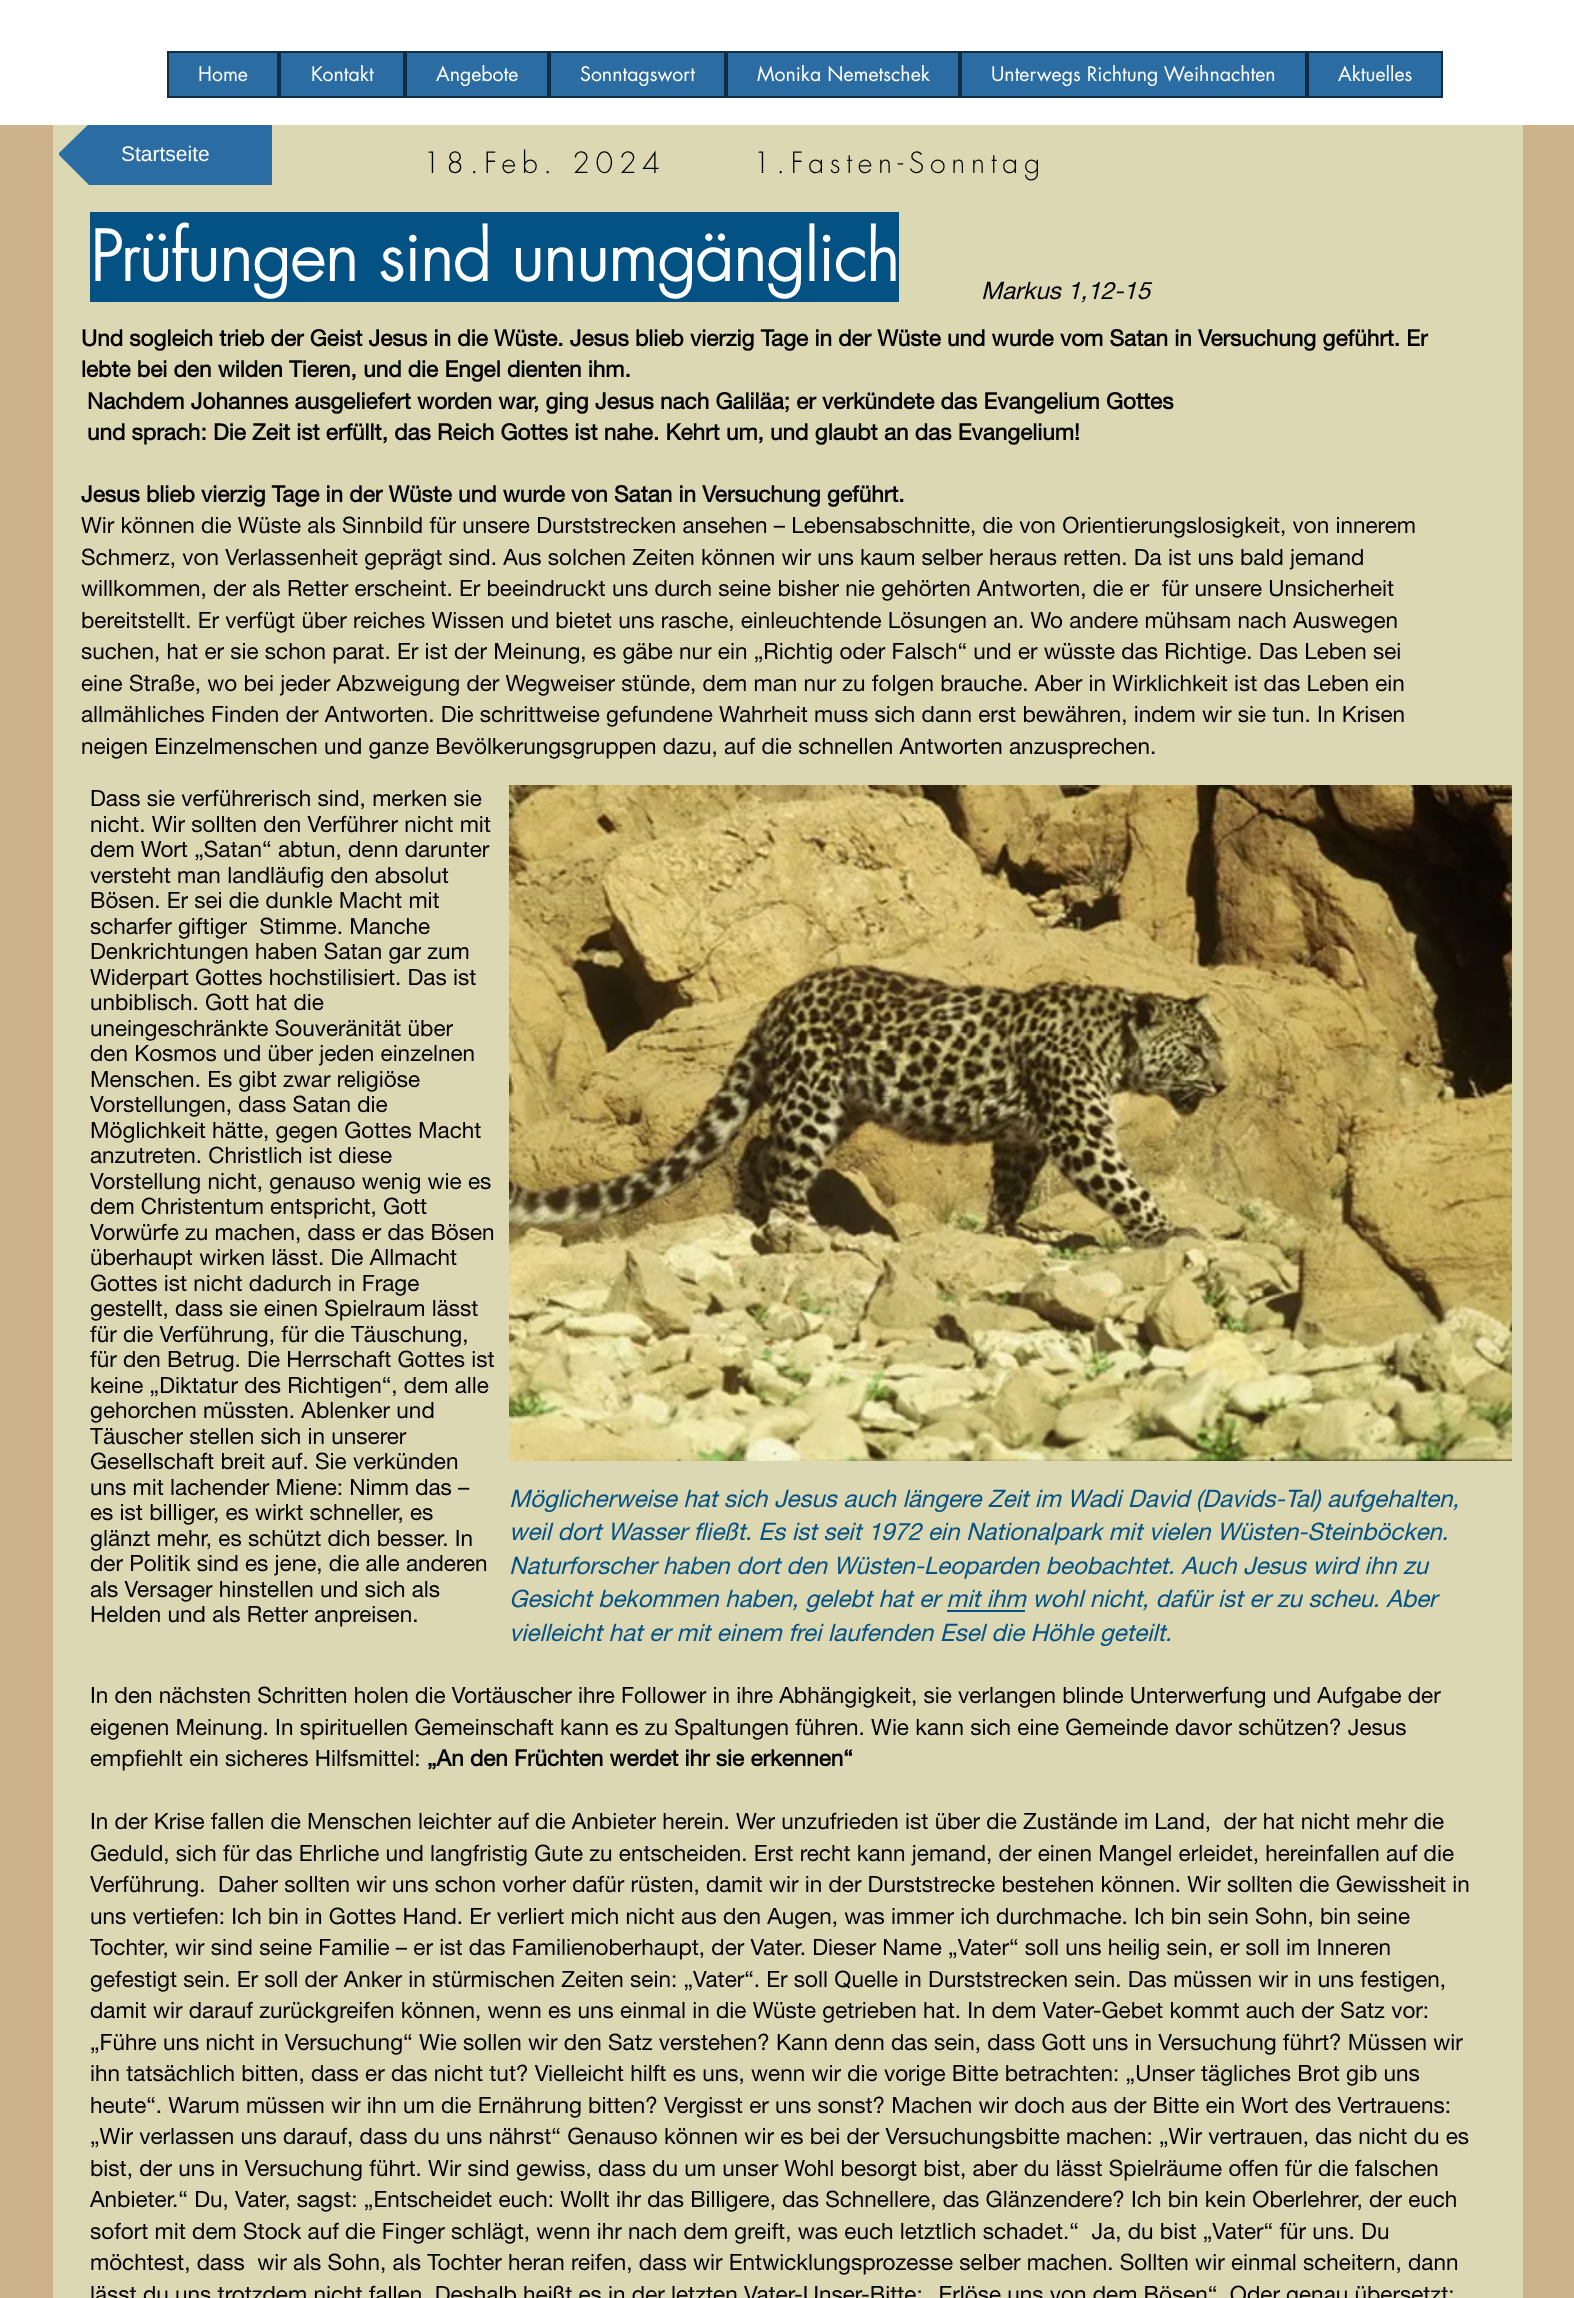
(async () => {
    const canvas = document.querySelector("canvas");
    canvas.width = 1574;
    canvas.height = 2298;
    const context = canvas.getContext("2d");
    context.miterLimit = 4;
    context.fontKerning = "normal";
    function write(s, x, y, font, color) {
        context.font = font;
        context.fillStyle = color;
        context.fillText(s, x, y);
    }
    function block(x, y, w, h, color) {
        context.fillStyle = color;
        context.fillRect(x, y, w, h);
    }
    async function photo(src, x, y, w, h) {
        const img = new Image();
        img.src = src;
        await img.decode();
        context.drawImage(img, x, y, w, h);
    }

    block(0, 0, 1574, 2298, "rgb(205, 179, 139)");
    block(0, 0, 1574, 125, "rgb(255, 255, 255)");
    context.fillStyle = "rgb(43, 108, 163)";
    context.beginPath();
    context.rect(168, 52, 110, 45);
    context.fill();
    context.strokeStyle = "rgb(18, 44, 67)";
    context.lineWidth = 2;
    context.stroke();
    write("Home", 198, 81, "19.5px futura", "rgb(255, 255, 255)");
    context.fillStyle = "rgb(43, 108, 163)";
    context.beginPath();
    context.rect(280, 52, 124, 45);
    context.fill();
    context.stroke();
    write("Kontakt", 311, 81, "19.5px futura", "rgb(255, 255, 255)");
    context.fillStyle = "rgb(43, 108, 163)";
    context.beginPath();
    context.rect(406, 52, 142, 45);
    context.fill();
    context.stroke();
    write("Angebote", 436, 81, "19.5px futura", "rgb(255, 255, 255)");
    context.fillStyle = "rgb(43, 108, 163)";
    context.beginPath();
    context.rect(550, 52, 175, 45);
    context.fill();
    context.stroke();
    write("Sonntagswort", 580, 81, "19.5px futura", "rgb(255, 255, 255)");
    context.fillStyle = "rgb(43, 108, 163)";
    context.beginPath();
    context.rect(727, 52, 232, 45);
    context.fill();
    context.stroke();
    write("Monika Nemetschek", 757, 81, "19.5px futura", "rgb(255, 255, 255)");
    context.fillStyle = "rgb(43, 108, 163)";
    context.beginPath();
    context.rect(961, 52, 345, 45);
    context.fill();
    context.stroke();
    write("Unterwegs Richtung Weihnachten", 991, 81, "19.5px futura", "rgb(255, 255, 255)");
    context.fillStyle = "rgb(43, 108, 163)";
    context.beginPath();
    context.rect(1308, 52, 134, 45);
    context.fill();
    context.stroke();
    write("Aktuelles", 1338, 81, "19.5px futura", "rgb(255, 255, 255)");
    block(53, 125, 1470, 2173, "rgb(220, 216, 180)");
    context.save();
    context.beginPath();
    context.rect(59, 125, 213, 60);
    context.clip();
    context.fillStyle = "rgb(43, 108, 163)";
    context.beginPath();
    context.moveTo(134, 154);
    context.lineTo(58, 154);
    context.lineTo(134, 80);
    context.closePath();
    context.fill();
    context.restore();
    block(134, 125, 138, 60, "rgb(43, 108, 163)");
    context.save();
    context.beginPath();
    context.rect(59, 125, 213, 60);
    context.clip();
    context.beginPath();
    context.moveTo(58, 154);
    context.lineTo(134, 154);
    context.lineTo(134, 230);
    context.closePath();
    context.fill();
    context.restore();
    write("Startseite", 121, 161, "21px Liberation Sans", "rgb(255, 255, 255)");
    context.letterSpacing = "5.7px";
    write("18.Feb. 2024      1.Fasten-Sonntag", 423, 173, "300 28.5px futura", "rgb(0, 0, 0)");
    block(90, 212, 809, 90, "rgb(4, 81, 132)");
    context.letterSpacing = "0px";
    write("Prüfungen sind unumgänglich", 90, 281, "bold 67.5px futura", "rgb(255, 255, 255)");
    write("Markus 1,12-15", 981, 299, "italic 24px helvetica neue", "rgb(0, 0, 0)");
    write("Und sogleich trieb der Geist Jesus in die Wüste. Jesus blieb vierzig Tage in der Wüste und wurde vom Satan in Versuchung geführt. Er", 81, 346, "bold 22.5px helvetica neue", "rgb(0, 0, 0)");
    write("lebte bei den wilden Tieren, und die Engel dienten ihm.", 81, 377, "bold 22.5px helvetica neue", "rgb(0, 0, 0)");
    write("Nachdem Johannes ausgeliefert worden war, ging Jesus nach Galiläa; er verkündete das Evangelium Gottes", 87, 409, "bold 22.5px helvetica neue", "rgb(0, 0, 0)");
    write("und sprach: Die Zeit ist erfüllt, das Reich Gottes ist nahe. Kehrt um, und glaubt an das Evangelium!", 87, 440, "bold 22.5px helvetica neue", "rgb(0, 0, 0)");
    write("Jesus blieb vierzig Tage in der Wüste und wurde von Satan in Versuchung geführt.", 81, 502, "bold 22.5px helvetica neue", "rgb(0, 0, 0)");
    write("Wir können die Wüste als Sinnbild für unsere Durststrecken ansehen – Lebensabschnitte, die von Orientierungslosigkeit, von innerem", 81, 533, "22.5px helvetica neue", "rgb(0, 0, 0)");
    write("Schmerz, von Verlassenheit geprägt sind. Aus solchen Zeiten können wir uns kaum selber heraus retten. Da ist uns bald jemand", 81, 565, "22.5px helvetica neue", "rgb(0, 0, 0)");
    write("willkommen, der als Retter erscheint. Er beeindruckt uns durch seine bisher nie gehörten Antworten, die er  für unsere Unsicherheit", 81, 596, "22.5px helvetica neue", "rgb(0, 0, 0)");
    write("bereitstellt. Er verfügt über reiches Wissen und bietet uns rasche, einleuchtende Lösungen an. Wo andere mühsam nach Auswegen", 81, 628, "22.5px helvetica neue", "rgb(0, 0, 0)");
    write("suchen, hat er sie schon parat. Er ist der Meinung, es gäbe nur ein „Richtig oder Falsch“ und er wüsste das Richtige. Das Leben sei", 81, 659, "22.5px helvetica neue", "rgb(0, 0, 0)");
    write("eine Straße, wo bei jeder Abzweigung der Wegweiser stünde, dem man nur zu folgen brauche. Aber in Wirklichkeit ist das Leben ein", 81, 691, "22.5px helvetica neue", "rgb(0, 0, 0)");
    write("allmähliches Finden der Antworten. Die schrittweise gefundene Wahrheit muss sich dann erst bewähren, indem wir sie tun. In Krisen", 81, 722, "22.5px helvetica neue", "rgb(0, 0, 0)");
    write("neigen Einzelmenschen und ganze Bevölkerungsgruppen dazu, auf die schnellen Antworten anzusprechen.", 81, 754, "22.5px helvetica neue", "rgb(0, 0, 0)");
    write("Dass sie verführerisch sind, merken sie", 90, 806, "22.5px helvetica neue", "rgb(0, 0, 0)");
    write("nicht. Wir sollten den Verführer nicht mit", 90, 832, "22.5px helvetica neue", "rgb(0, 0, 0)");
    write("dem Wort „Satan“ abtun, denn darunter", 90, 857, "22.5px helvetica neue", "rgb(0, 0, 0)");
    write("versteht man landläufig den absolut", 90, 883, "22.5px helvetica neue", "rgb(0, 0, 0)");
    write("Bösen. Er sei die dunkle Macht mit", 90, 908, "22.5px helvetica neue", "rgb(0, 0, 0)");
    write("scharfer giftiger  Stimme. Manche", 90, 934, "22.5px helvetica neue", "rgb(0, 0, 0)");
    write("Denkrichtungen haben Satan gar zum", 90, 959, "22.5px helvetica neue", "rgb(0, 0, 0)");
    write("Widerpart Gottes hochstilisiert. Das ist", 90, 985, "22.5px helvetica neue", "rgb(0, 0, 0)");
    write("unbiblisch. Gott hat die", 90, 1010, "22.5px helvetica neue", "rgb(0, 0, 0)");
    write("uneingeschränkte Souveränität über", 90, 1036, "22.5px helvetica neue", "rgb(0, 0, 0)");
    write("den Kosmos und über jeden einzelnen", 90, 1061, "22.5px helvetica neue", "rgb(0, 0, 0)");
    write("Menschen. Es gibt zwar religiöse", 90, 1087, "22.5px helvetica neue", "rgb(0, 0, 0)");
    write("Vorstellungen, dass Satan die", 90, 1112, "22.5px helvetica neue", "rgb(0, 0, 0)");
    write("Möglichkeit hätte, gegen Gottes Macht", 90, 1138, "22.5px helvetica neue", "rgb(0, 0, 0)");
    write("anzutreten. Christlich ist diese", 90, 1163, "22.5px helvetica neue", "rgb(0, 0, 0)");
    write("Vorstellung nicht, genauso wenig wie es", 90, 1189, "22.5px helvetica neue", "rgb(0, 0, 0)");
    write("dem Christentum entspricht, Gott", 90, 1214, "22.5px helvetica neue", "rgb(0, 0, 0)");
    write("Vorwürfe zu machen, dass er das Bösen", 90, 1240, "22.5px helvetica neue", "rgb(0, 0, 0)");
    write("überhaupt wirken lässt. Die Allmacht", 90, 1265, "22.5px helvetica neue", "rgb(0, 0, 0)");
    write("Gottes ist nicht dadurch in Frage", 90, 1291, "22.5px helvetica neue", "rgb(0, 0, 0)");
    write("gestellt, dass sie einen Spielraum lässt", 90, 1316, "22.5px helvetica neue", "rgb(0, 0, 0)");
    write("für die Verführung, für die Täuschung,", 90, 1342, "22.5px helvetica neue", "rgb(0, 0, 0)");
    write("für den Betrug. Die Herrschaft Gottes ist", 90, 1367, "22.5px helvetica neue", "rgb(0, 0, 0)");
    write("keine „Diktatur des Richtigen“, dem alle", 90, 1393, "22.5px helvetica neue", "rgb(0, 0, 0)");
    write("gehorchen müssten. Ablenker und", 90, 1418, "22.5px helvetica neue", "rgb(0, 0, 0)");
    write("Täuscher stellen sich in unserer", 90, 1444, "22.5px helvetica neue", "rgb(0, 0, 0)");
    write("Gesellschaft breit auf. Sie verkünden", 90, 1469, "22.5px helvetica neue", "rgb(0, 0, 0)");
    write("uns mit lachender Miene: Nimm das –", 90, 1495, "22.5px helvetica neue", "rgb(0, 0, 0)");
    write("es ist billiger, es wirkt schneller, es", 90, 1520, "22.5px helvetica neue", "rgb(0, 0, 0)");
    write("glänzt mehr, es schützt dich besser. In", 90, 1546, "22.5px helvetica neue", "rgb(0, 0, 0)");
    write("der Politik sind es jene, die alle anderen", 90, 1571, "22.5px helvetica neue", "rgb(0, 0, 0)");
    write("als Versager hinstellen und sich als", 90, 1597, "22.5px helvetica neue", "rgb(0, 0, 0)");
    write("Helden und als Retter anpreisen.", 90, 1622, "22.5px helvetica neue", "rgb(0, 0, 0)");
    await photo("media/1.png", 509, 785, 1003, 676);
    write("Möglicherweise hat sich Jesus auch längere Zeit im Wadi David (Davids-Tal) aufgehalten,", 509, 1507, "italic 24px helvetica neue", "rgb(4, 81, 132)");
    write("weil dort Wasser fließt. Es ist seit 1972 ein Nationalpark mit vielen Wüsten-Steinböcken.", 509, 1540, "italic 24px helvetica neue", "rgb(4, 81, 132)");
    write("Naturforscher haben dort den Wüsten-Leoparden beobachtet. Auch Jesus wird ihn zu", 509, 1574, "italic 24px helvetica neue", "rgb(4, 81, 132)");
    write("Gesicht bekommen haben, gelebt hat er mit ihm wohl nicht, dafür ist er zu scheu. Aber", 509, 1607, "italic 24px helvetica neue", "rgb(4, 81, 132)");
    block(947, 1610, 78, 2, "rgb(4, 81, 132)");
    write("vielleicht hat er mit einem frei laufenden Esel die Höhle geteilt.", 509, 1641, "italic 24px helvetica neue", "rgb(4, 81, 132)");
    write("In den nächsten Schritten holen die Vortäuscher ihre Follower in ihre Abhängigkeit, sie verlangen blinde Unterwerfung und Aufgabe der", 90, 1703, "22.5px helvetica neue", "rgb(0, 0, 0)");
    write("eigenen Meinung. In spirituellen Gemeinschaft kann es zu Spaltungen führen. Wie kann sich eine Gemeinde davor schützen? Jesus", 90, 1735, "22.5px helvetica neue", "rgb(0, 0, 0)");
    write("empfiehlt ein sicheres Hilfsmittel:", 90, 1766, "22.5px helvetica neue", "rgb(0, 0, 0)");
    write("„An den Früchten werdet ihr sie erkennen“", 427, 1766, "bold 22.5px helvetica neue", "rgb(0, 0, 0)");
    write("In der Krise fallen die Menschen leichter auf die Anbieter herein. Wer unzufrieden ist über die Zustände im Land,  der hat nicht mehr die", 90, 1829, "22.5px helvetica neue", "rgb(0, 0, 0)");
    write("Geduld, sich für das Ehrliche und langfristig Gute zu entscheiden. Erst recht kann jemand, der einen Mangel erleidet, hereinfallen auf die", 90, 1861, "22.5px helvetica neue", "rgb(0, 0, 0)");
    write("Verführung.  Daher sollten wir uns schon vorher dafür rüsten, damit wir in der Durststrecke bestehen können. Wir sollten die Gewissheit in", 90, 1892, "22.5px helvetica neue", "rgb(0, 0, 0)");
    write("uns vertiefen: Ich bin in Gottes Hand. Er verliert mich nicht aus den Augen, was immer ich durchmache. Ich bin sein Sohn, bin seine", 90, 1924, "22.5px helvetica neue", "rgb(0, 0, 0)");
    write("Tochter, wir sind seine Familie – er ist das Familienoberhaupt, der Vater. Dieser Name „Vater“ soll uns heilig sein, er soll im Inneren", 90, 1955, "22.5px helvetica neue", "rgb(0, 0, 0)");
    write("gefestigt sein. Er soll der Anker in stürmischen Zeiten sein: „Vater“. Er soll Quelle in Durststrecken sein. Das müssen wir in uns festigen,", 90, 1987, "22.5px helvetica neue", "rgb(0, 0, 0)");
    write("damit wir darauf zurückgreifen können, wenn es uns einmal in die Wüste getrieben hat. In dem Vater-Gebet kommt auch der Satz vor:", 90, 2018, "22.5px helvetica neue", "rgb(0, 0, 0)");
    write("„Führe uns nicht in Versuchung“ Wie sollen wir den Satz verstehen? Kann denn das sein, dass Gott uns in Versuchung führt? Müssen wir", 90, 2050, "22.5px helvetica neue", "rgb(0, 0, 0)");
    write("ihn tatsächlich bitten, dass er das nicht tut? Vielleicht hilft es uns, wenn wir die vorige Bitte betrachten: „Unser tägliches Brot gib uns", 90, 2081, "22.5px helvetica neue", "rgb(0, 0, 0)");
    write("heute“. Warum müssen wir ihn um die Ernährung bitten? Vergisst er uns sonst? Machen wir doch aus der Bitte ein Wort des Vertrauens:", 90, 2113, "22.5px helvetica neue", "rgb(0, 0, 0)");
    write("„Wir verlassen uns darauf, dass du uns nährst“ Genauso können wir es bei der Versuchungsbitte machen: „Wir vertrauen, das nicht du es", 90, 2144, "22.5px helvetica neue", "rgb(0, 0, 0)");
    write("bist, der uns in Versuchung führt. Wir sind gewiss, dass du um unser Wohl besorgt bist, aber du lässt Spielräume offen für die falschen", 90, 2176, "22.5px helvetica neue", "rgb(0, 0, 0)");
    write("Anbieter.“ Du, Vater, sagst: „Entscheidet euch: Wollt ihr das Billigere, das Schnellere, das Glänzendere? Ich bin kein Oberlehrer, der euch", 90, 2207, "22.5px helvetica neue", "rgb(0, 0, 0)");
    write("sofort mit dem Stock auf die Finger schlägt, wenn ihr nach dem greift, was euch letztlich schadet.“  Ja, du bist „Vater“ für uns. Du", 90, 2239, "22.5px helvetica neue", "rgb(0, 0, 0)");
    write("möchtest, dass  wir als Sohn, als Tochter heran reifen, dass wir Entwicklungsprozesse selber machen. Sollten wir einmal scheitern, dann", 90, 2270, "22.5px helvetica neue", "rgb(0, 0, 0)");
    write("lässt du uns trotzdem nicht fallen. Deshalb heißt es in der letzten Vater-Unser-Bitte: „Erlöse uns von dem Bösen“. Oder genau übersetzt:", 90, 2302, "22.5px helvetica neue", "rgb(0, 0, 0)");
})();
